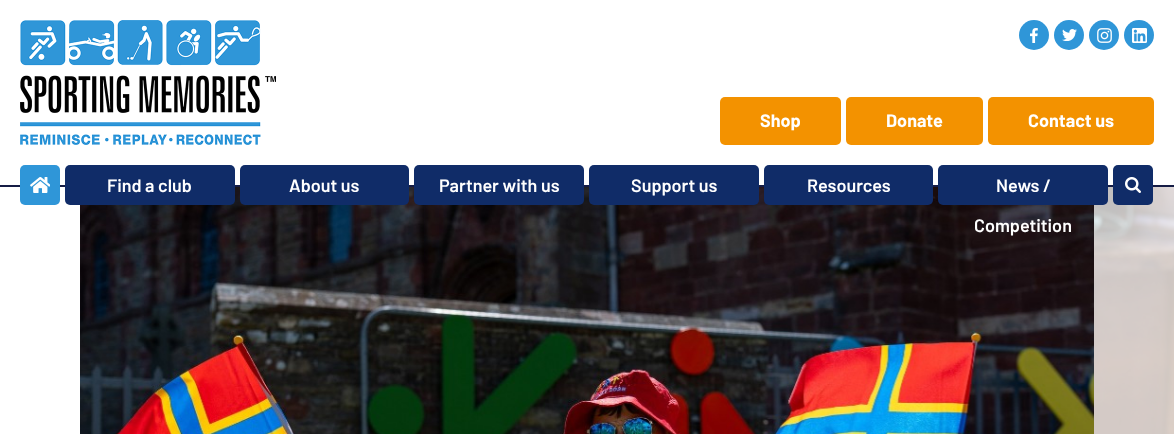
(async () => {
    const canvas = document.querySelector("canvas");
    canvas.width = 1174;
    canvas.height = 434;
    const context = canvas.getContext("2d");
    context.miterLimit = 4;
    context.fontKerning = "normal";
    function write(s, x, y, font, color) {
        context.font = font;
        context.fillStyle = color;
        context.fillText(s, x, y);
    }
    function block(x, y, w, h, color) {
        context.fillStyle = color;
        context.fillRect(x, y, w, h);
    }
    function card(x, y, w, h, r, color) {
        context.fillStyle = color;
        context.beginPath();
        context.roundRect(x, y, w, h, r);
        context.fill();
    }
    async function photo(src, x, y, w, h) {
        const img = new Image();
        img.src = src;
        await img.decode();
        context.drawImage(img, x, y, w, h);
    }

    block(0, 0, 1174, 434, "rgb(255, 255, 255)");
    await photo("media/1.png", 20, 20, 256, 125);
    context.fillStyle = "rgb(47, 150, 216)";
    context.beginPath();
    context.arc(1034, 35, 15, 0, Math.PI * 2);
    context.fill();
    await photo("media/2.png", 1030, 28, 8, 15);
    context.beginPath();
    context.arc(1069, 35, 15, 0, Math.PI * 2);
    context.fill();
    await photo("media/3.png", 1062, 29, 15, 12);
    context.beginPath();
    context.arc(1104, 35, 15, 0, Math.PI * 2);
    context.fill();
    await photo("media/4.png", 1097, 28, 15, 15);
    context.beginPath();
    context.arc(1139, 35, 15, 0, Math.PI * 2);
    context.fill();
    await photo("media/5.png", 1132, 28, 15, 15);
    card(720, 97, 121, 48, 5, "rgb(243, 146, 0)");
    write("Shop", 760, 127, "bold 18px Barlow", "rgb(255, 255, 255)");
    card(846, 97, 137, 48, 5, "rgb(243, 146, 0)");
    write("Donate", 886, 127, "bold 18px Barlow", "rgb(255, 255, 255)");
    card(988, 97, 166, 48, 5, "rgb(243, 146, 0)");
    write("Contact us", 1028, 127, "bold 18px Barlow", "rgb(255, 255, 255)");
    block(0, 185, 1174, 2, "rgb(21, 28, 69)");
    card(20, 165, 40, 40, 5, "rgb(47, 150, 216)");
    await photo("media/6.png", 30, 177, 20, 16);
    await photo("media/8.png", 80, 187, 1014, 247);
    card(65, 165, 170, 40, 5, "rgb(16, 44, 104)");
    write("Find a club", 107, 192, "600 18px Barlow", "rgb(255, 255, 255)");
    card(240, 165, 169, 40, 5, "rgb(16, 44, 104)");
    write("About us", 289, 192, "600 18px Barlow", "rgb(255, 255, 255)");
    card(414, 165, 170, 40, 5, "rgb(16, 44, 104)");
    write("Partner with us", 439, 192, "600 18px Barlow", "rgb(255, 255, 255)");
    card(589, 165, 170, 40, 5, "rgb(16, 44, 104)");
    write("Support us", 631, 192, "600 18px Barlow", "rgb(255, 255, 255)");
    card(764, 165, 169, 40, 5, "rgb(16, 44, 104)");
    write("Resources", 807, 192, "600 18px Barlow", "rgb(255, 255, 255)");
    await photo("media/9.png", 1094, 187, 80, 247);
    card(938, 165, 170, 40, 5, "rgb(16, 44, 104)");
    write("News /", 996, 192, "600 18px Barlow", "rgb(255, 255, 255)");
    write("Competition", 974, 232, "600 18px Barlow", "rgb(255, 255, 255)");
    card(1113, 165, 40, 40, 5, "rgb(16, 44, 104)");
    await photo("media/7.png", 1125, 177, 16, 16);
})();
